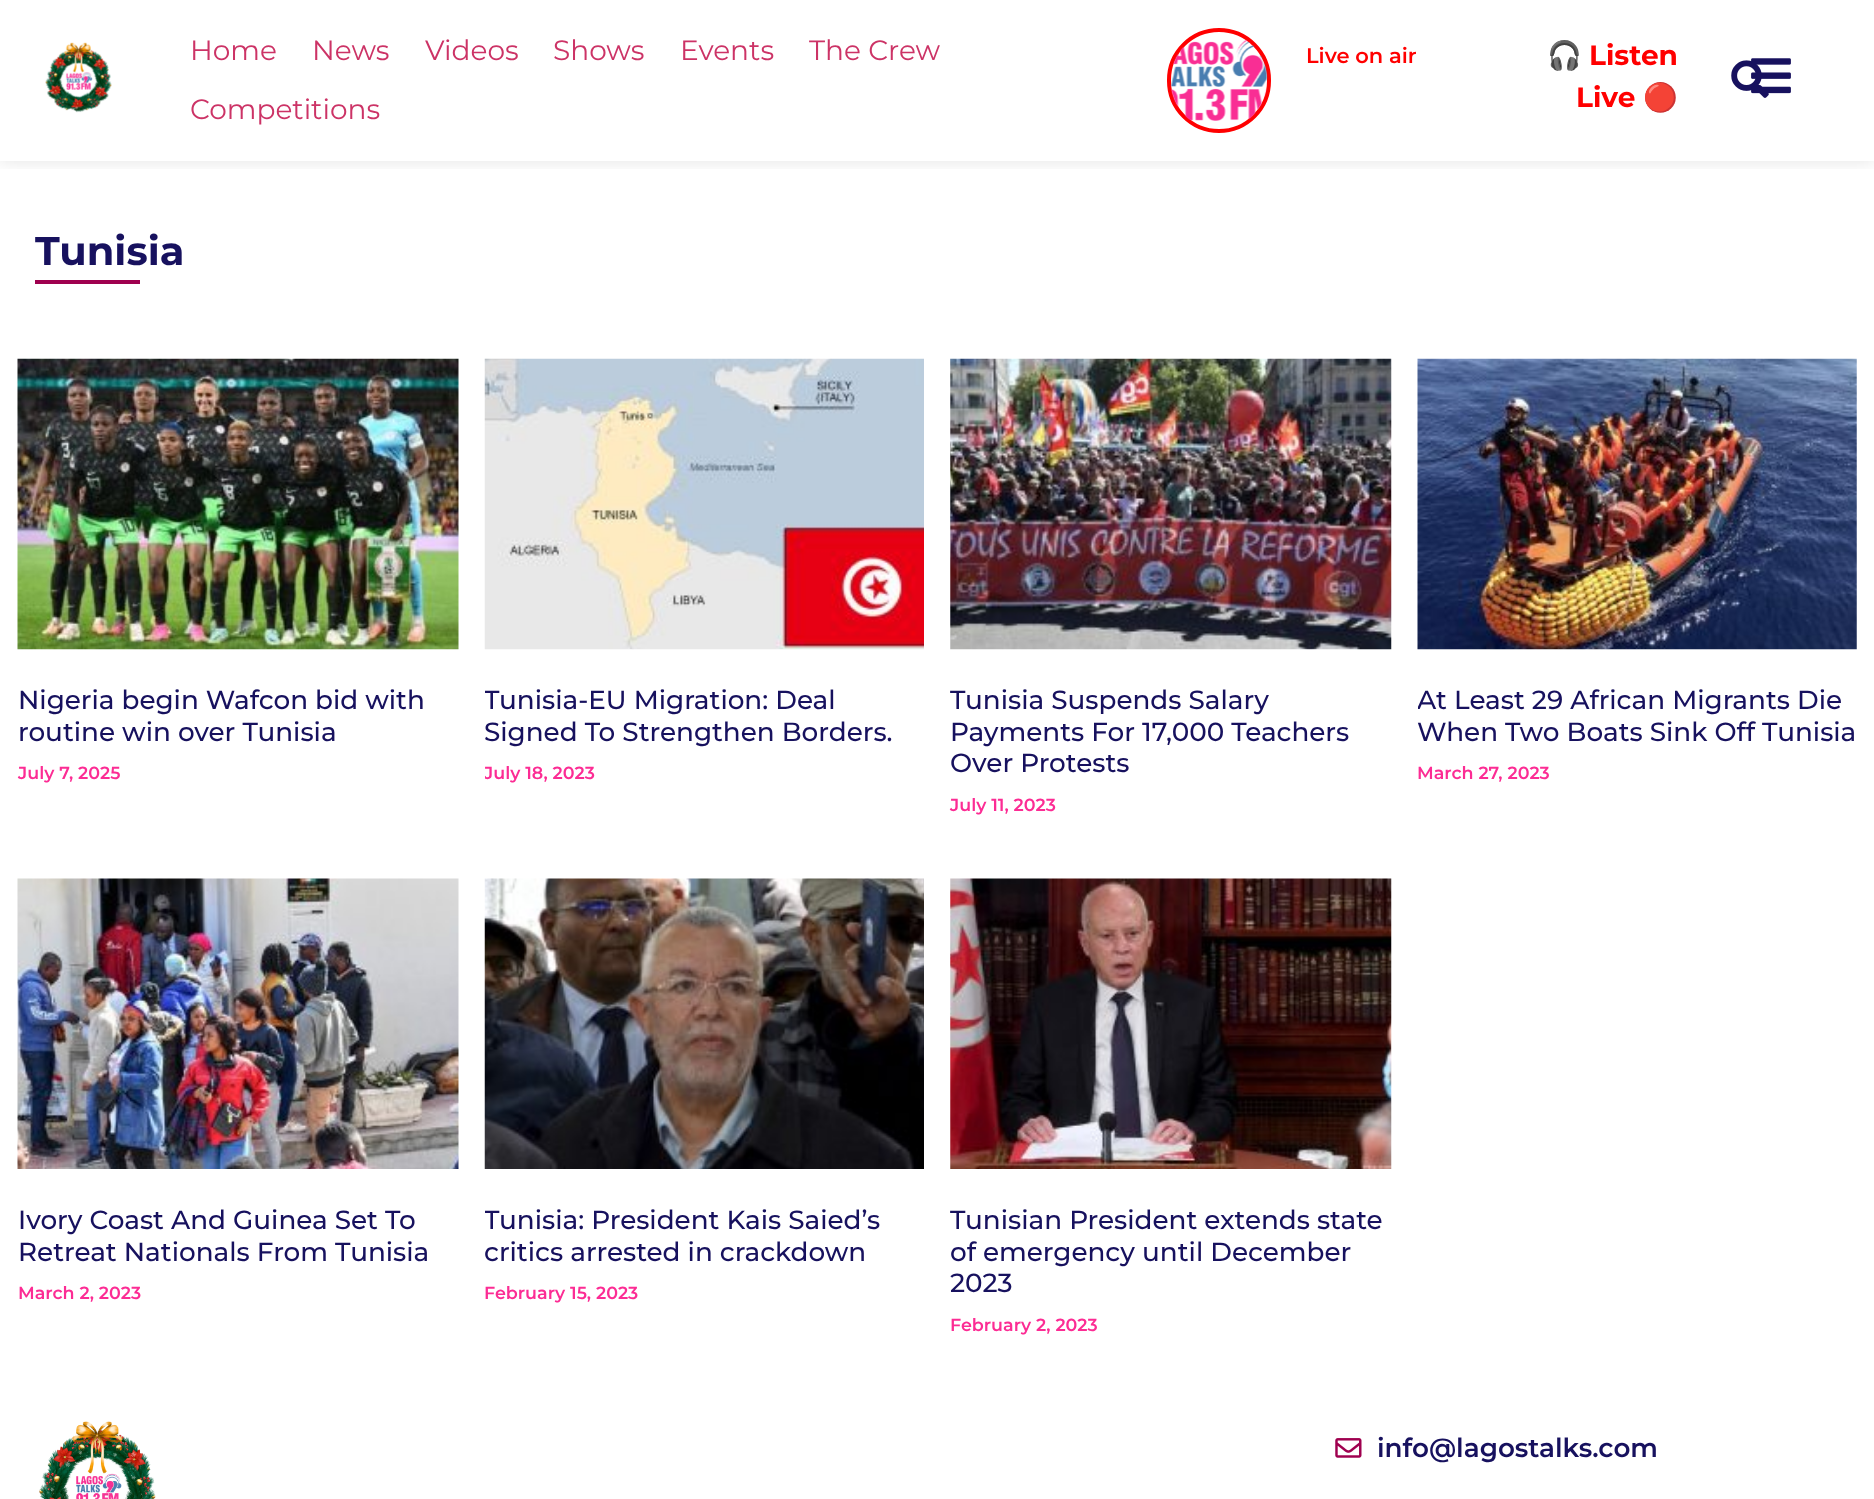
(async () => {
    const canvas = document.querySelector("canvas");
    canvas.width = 1874;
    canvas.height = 1499;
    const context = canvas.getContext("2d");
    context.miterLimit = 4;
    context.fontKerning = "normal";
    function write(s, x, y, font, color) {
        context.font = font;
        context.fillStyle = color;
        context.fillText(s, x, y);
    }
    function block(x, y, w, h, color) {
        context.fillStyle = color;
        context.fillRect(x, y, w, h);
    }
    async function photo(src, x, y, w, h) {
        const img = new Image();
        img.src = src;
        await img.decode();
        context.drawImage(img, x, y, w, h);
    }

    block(0, 0, 1874, 1499, "rgb(255, 255, 255)");
    context.save();
    context.beginPath();
    context.rect(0, 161, 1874, 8);
    context.clip();
    context.fillStyle = "rgba(0, 0, 0, 0.11)";
    context.filter = "blur(9px)";
    context.beginPath();
    context.rect(0, 0, 1874, 161);
    context.fill();
    context.filter = "none";
    context.restore();
    await photo("media/1.png", 45, 42, 67, 71);
    write("Home", 190, 60, "28px Montserrat", "rgb(204, 51, 102)");
    write("News", 312, 60, "28px Montserrat", "rgb(204, 51, 102)");
    write("Videos", 425, 60, "28px Montserrat", "rgb(204, 51, 102)");
    write("Shows", 553, 60, "28px Montserrat", "rgb(204, 51, 102)");
    write("Events", 680, 60, "28px Montserrat", "rgb(204, 51, 102)");
    write("The Crew", 809, 60, "28px Montserrat", "rgb(204, 51, 102)");
    write("Competitions", 190, 119, "28px Montserrat", "rgb(204, 51, 102)");
    context.beginPath();
    context.roundRect(1169, 30, 100, 101, 50);
    context.strokeStyle = "rgb(255, 0, 0)";
    context.lineWidth = 4;
    context.stroke();
    await photo("media/2.png", 1170, 40, 98, 81);
    write("Live on air", 1306, 63, "600 21px Montserrat", "rgb(255, 0, 0)");
    write("🎧", 1547, 65, "bold 28px Noto Color Emoji", "rgb(204, 51, 102)");
    write("Listen", 1589, 65, "bold 28px Montserrat", "rgb(255, 0, 0)");
    write("Live", 1576, 107, "bold 28px Montserrat", "rgb(255, 0, 0)");
    write("🔴", 1643, 107, "bold 28px Noto Color Emoji", "rgb(255, 0, 0)");
    await photo("media/3.png", 1731, 60, 38, 38);
    await photo("media/4.png", 1751, 58, 40, 36);
    write("Tunisia", 35, 265, "bold 40px Montserrat", "rgb(23, 17, 94)");
    block(35, 280, 105, 4, "rgb(159, 0, 79)");
    await photo("media/5.png", 17, 358, 442, 292);
    write("Nigeria begin Wafcon bid with", 18, 709, "500 26.25px Montserrat", "rgb(23, 17, 94)");
    write("routine win over Tunisia", 18, 741, "500 26.25px Montserrat", "rgb(23, 17, 94)");
    write("July 7, 2025", 18, 779, "600 17.5px Montserrat", "rgb(252, 44, 148)");
    await photo("media/6.png", 484, 358, 440, 292);
    context.save();
    context.beginPath();
    context.rect(485, 359, 439, 462);
    context.clip();
    write("Tunisia-EU Migration: Deal", 484, 709, "500 26.25px Montserrat", "rgb(23, 17, 94)");
    context.restore();
    write("Signed To Strengthen Borders.", 484, 741, "500 26.25px Montserrat", "rgb(23, 17, 94)");
    context.save();
    context.beginPath();
    context.rect(485, 359, 439, 462);
    context.clip();
    write("July 18, 2023", 484, 779, "600 17.5px Montserrat", "rgb(252, 44, 148)");
    context.restore();
    await photo("media/7.png", 950, 358, 442, 292);
    write("Tunisia Suspends Salary", 950, 709, "500 26.25px Montserrat", "rgb(23, 17, 94)");
    write("Payments For 17,000 Teachers", 950, 741, "500 26.25px Montserrat", "rgb(23, 17, 94)");
    write("Over Protests", 950, 772, "500 26.25px Montserrat", "rgb(23, 17, 94)");
    write("July 11, 2023", 950, 811, "600 17.5px Montserrat", "rgb(252, 44, 148)");
    await photo("media/8.png", 1417, 358, 440, 292);
    context.save();
    context.beginPath();
    context.rect(1418, 359, 439, 462);
    context.clip();
    write("At Least 29 African Migrants Die", 1417, 709, "500 26.25px Montserrat", "rgb(23, 17, 94)");
    context.restore();
    write("When Two Boats Sink Off Tunisia", 1417, 741, "500 26.25px Montserrat", "rgb(23, 17, 94)");
    write("March 27, 2023", 1417, 779, "600 17.5px Montserrat", "rgb(252, 44, 148)");
    await photo("media/9.png", 17, 878, 442, 291);
    write("Ivory Coast And Guinea Set To", 18, 1229, "500 26.25px Montserrat", "rgb(23, 17, 94)");
    write("Retreat Nationals From Tunisia", 18, 1261, "500 26.25px Montserrat", "rgb(23, 17, 94)");
    write("March 2, 2023", 18, 1299, "600 17.5px Montserrat", "rgb(252, 44, 148)");
    await photo("media/10.png", 484, 878, 440, 291);
    context.save();
    context.beginPath();
    context.rect(485, 879, 439, 462);
    context.clip();
    write("Tunisia: President Kais Saied’s", 484, 1229, "500 26.25px Montserrat", "rgb(23, 17, 94)");
    context.restore();
    write("critics arrested in crackdown", 484, 1261, "500 26.25px Montserrat", "rgb(23, 17, 94)");
    write("February 15, 2023", 484, 1299, "600 17.5px Montserrat", "rgb(252, 44, 148)");
    await photo("media/11.png", 950, 878, 442, 291);
    write("Tunisian President extends state", 950, 1229, "500 26.25px Montserrat", "rgb(23, 17, 94)");
    write("of emergency until December", 950, 1261, "500 26.25px Montserrat", "rgb(23, 17, 94)");
    write("2023", 950, 1292, "500 26.25px Montserrat", "rgb(23, 17, 94)");
    write("February 2, 2023", 950, 1331, "600 17.5px Montserrat", "rgb(252, 44, 148)");
    await photo("media/12.png", 39, 1421, 117, 78);
    await photo("media/13.png", 1335, 1438, 27, 20);
    write("info@lagostalks.com", 1377, 1457, "600 26.25px Montserrat", "rgb(23, 17, 94)");
})();
